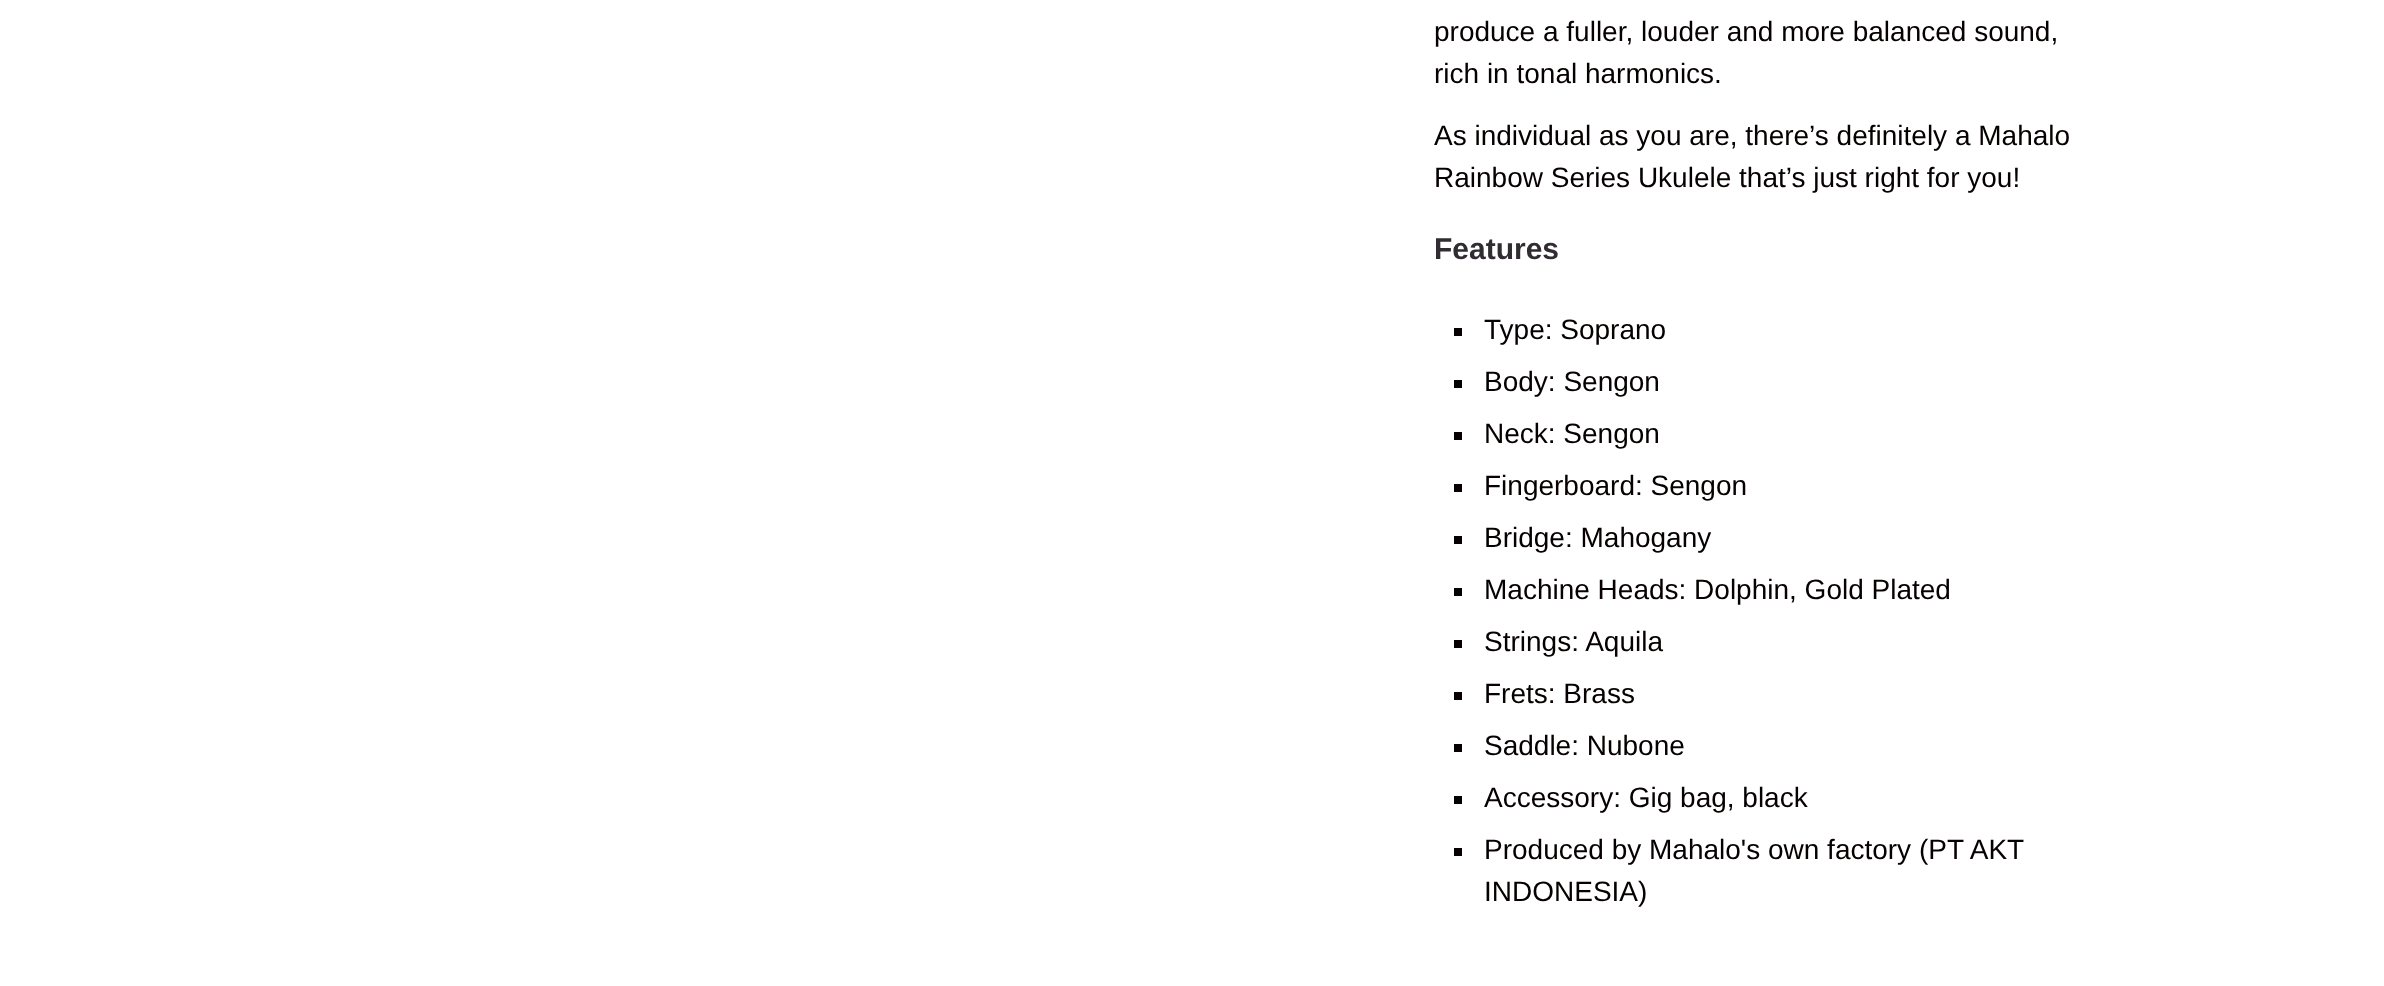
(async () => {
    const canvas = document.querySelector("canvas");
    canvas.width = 2384;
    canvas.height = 986;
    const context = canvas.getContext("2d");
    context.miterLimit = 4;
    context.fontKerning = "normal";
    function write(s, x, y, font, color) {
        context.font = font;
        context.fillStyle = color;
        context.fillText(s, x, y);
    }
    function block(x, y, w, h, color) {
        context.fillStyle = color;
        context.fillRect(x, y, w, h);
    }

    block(0, 0, 2384, 986, "rgb(255, 255, 255)");
    write("produce a fuller, louder and more balanced sound,", 1434, 41, "28px Liberation Sans", "rgb(6, 0, 0)");
    write("rich in tonal harmonics.", 1434, 83, "28px Liberation Sans", "rgb(6, 0, 0)");
    write("As individual as you are, there’s definitely a Mahalo", 1434, 145, "28px Liberation Sans", "rgb(6, 0, 0)");
    write("Rainbow Series Ukulele that’s just right for you!", 1434, 187, "28px Liberation Sans", "rgb(6, 0, 0)");
    write("Features", 1434, 259, "bold 30px Liberation Sans", "rgb(49, 44, 50)");
    block(1454, 328, 8, 8, "rgb(6, 0, 0)");
    write("Type: Soprano", 1484, 339, "28px Liberation Sans", "rgb(6, 0, 0)");
    block(1454, 380, 8, 8, "rgb(6, 0, 0)");
    write("Body: Sengon", 1484, 391, "28px Liberation Sans", "rgb(6, 0, 0)");
    block(1454, 432, 8, 8, "rgb(6, 0, 0)");
    write("Neck: Sengon", 1484, 443, "28px Liberation Sans", "rgb(6, 0, 0)");
    block(1454, 484, 8, 8, "rgb(6, 0, 0)");
    write("Fingerboard: Sengon", 1484, 495, "28px Liberation Sans", "rgb(6, 0, 0)");
    block(1454, 536, 8, 8, "rgb(6, 0, 0)");
    write("Bridge: Mahogany", 1484, 547, "28px Liberation Sans", "rgb(6, 0, 0)");
    block(1454, 588, 8, 8, "rgb(6, 0, 0)");
    write("Machine Heads: Dolphin, Gold Plated", 1484, 599, "28px Liberation Sans", "rgb(6, 0, 0)");
    block(1454, 640, 8, 8, "rgb(6, 0, 0)");
    write("Strings: Aquila", 1484, 651, "28px Liberation Sans", "rgb(6, 0, 0)");
    block(1454, 692, 8, 8, "rgb(6, 0, 0)");
    write("Frets: Brass", 1484, 703, "28px Liberation Sans", "rgb(6, 0, 0)");
    block(1454, 744, 8, 8, "rgb(6, 0, 0)");
    write("Saddle: Nubone", 1484, 755, "28px Liberation Sans", "rgb(6, 0, 0)");
    block(1454, 796, 8, 8, "rgb(6, 0, 0)");
    write("Accessory: Gig bag, black", 1484, 807, "28px Liberation Sans", "rgb(6, 0, 0)");
    block(1454, 848, 8, 8, "rgb(6, 0, 0)");
    write("Produced by Mahalo's own factory (PT AKT", 1484, 859, "28px Liberation Sans", "rgb(6, 0, 0)");
    write("INDONESIA)", 1484, 901, "28px Liberation Sans", "rgb(6, 0, 0)");
})();
